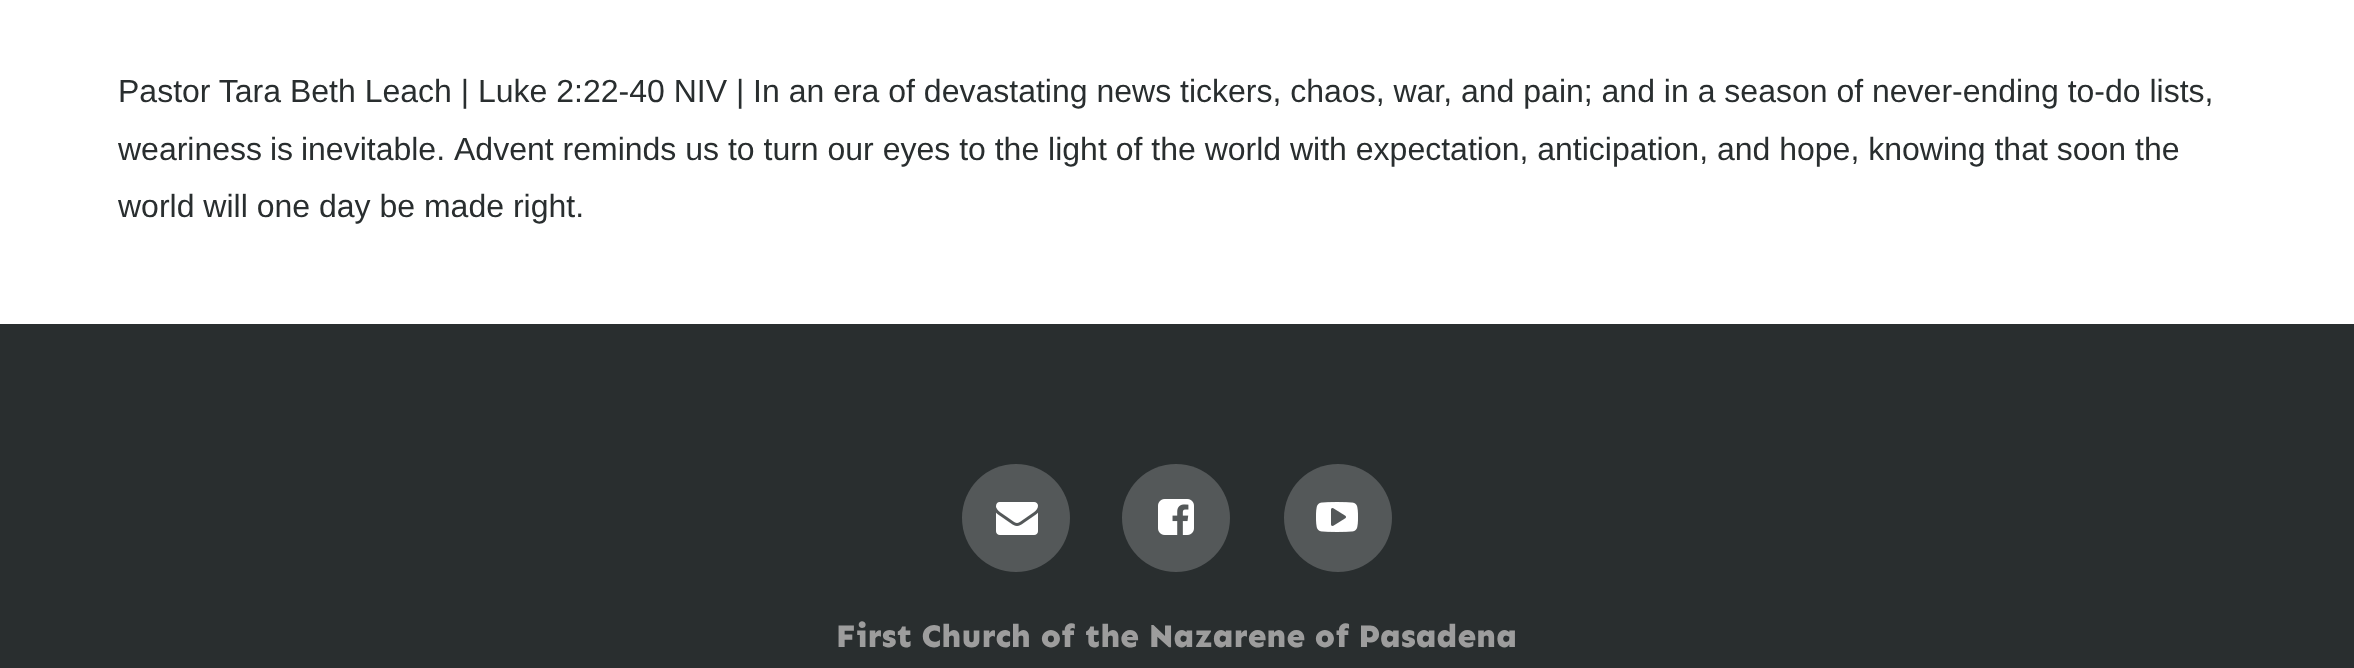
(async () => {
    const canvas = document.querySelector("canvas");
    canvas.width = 2354;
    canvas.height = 668;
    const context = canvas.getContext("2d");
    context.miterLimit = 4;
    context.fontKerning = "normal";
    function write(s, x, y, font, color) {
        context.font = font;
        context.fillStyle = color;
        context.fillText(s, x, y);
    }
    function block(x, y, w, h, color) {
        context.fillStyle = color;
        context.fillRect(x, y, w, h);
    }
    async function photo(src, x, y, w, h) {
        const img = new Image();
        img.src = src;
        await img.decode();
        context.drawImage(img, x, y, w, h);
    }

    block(0, 0, 2354, 668, "rgb(255, 255, 255)");
    write("Pastor Tara Beth Leach | Luke 2:22-40 NIV | In an era of devastating news tickers, chaos, war, and pain; and in a season of never-ending to-do lists,", 118, 102, "32px Liberation Sans", "rgb(41, 46, 47)");
    context.wordSpacing = "-1px";
    write("weariness is inevitable.", 118, 160, "32px Liberation Sans", "rgb(41, 46, 47)");
    context.wordSpacing = "0px";
    write("Advent reminds us to turn our eyes to the light of the world with expectation, anticipation, and hope, knowing that soon the", 454, 160, "32px Liberation Sans", "rgb(41, 46, 47)");
    write("world will one day be made right.", 118, 217, "32px Liberation Sans", "rgb(41, 46, 47)");
    block(0, 324, 2354, 344, "rgb(41, 46, 47)");
    context.fillStyle = "rgb(84, 88, 89)";
    context.beginPath();
    context.arc(1016, 518, 54, 0, Math.PI * 2);
    context.fill();
    await photo("media/1.png", 996, 502, 42, 33);
    context.beginPath();
    context.arc(1176, 518, 54, 0, Math.PI * 2);
    context.fill();
    await photo("media/2.png", 1158, 499, 36, 36);
    context.beginPath();
    context.arc(1338, 518, 54, 0, Math.PI * 2);
    context.fill();
    await photo("media/3.png", 1316, 502, 42, 30);
    write("First Church of the Nazarene of Pasadena", 836, 647, "800 33px Sen", "rgb(157, 157, 157)");
})();
